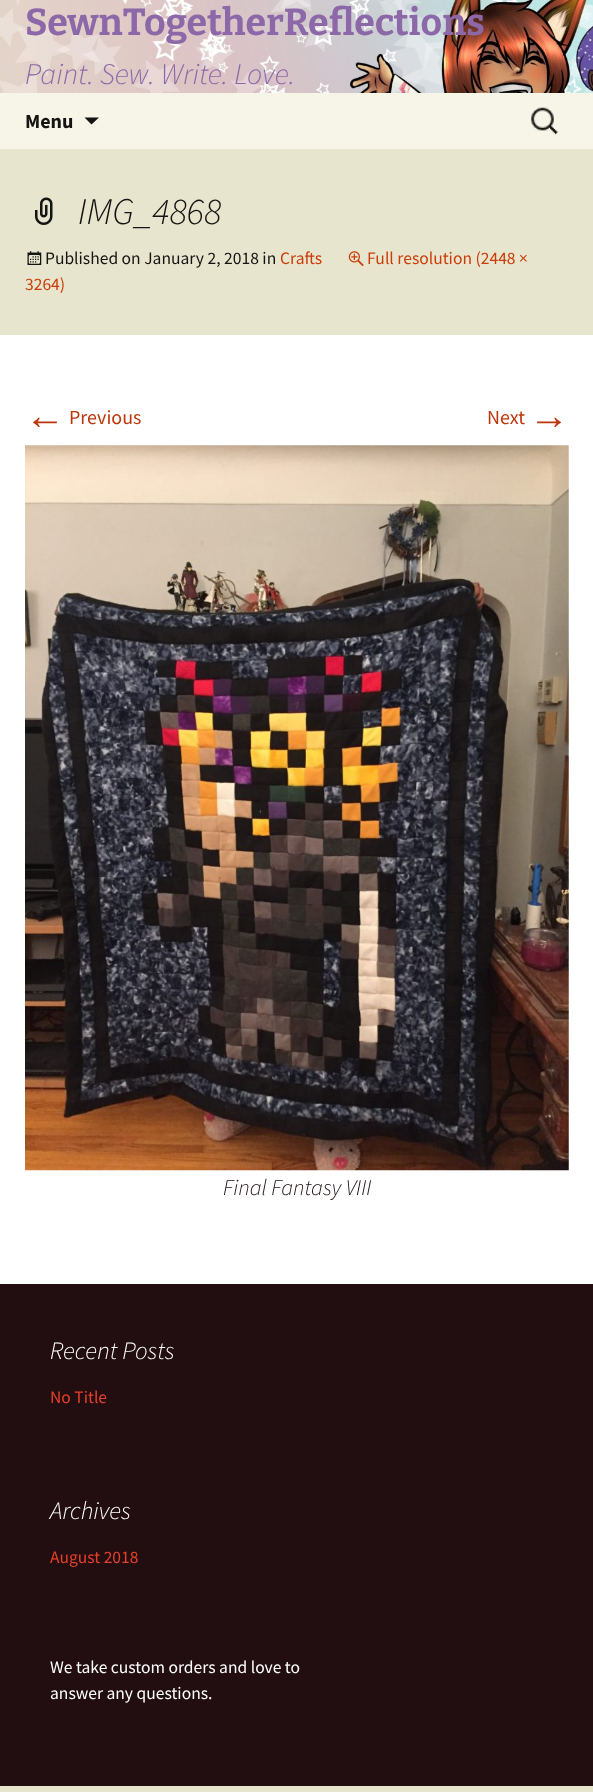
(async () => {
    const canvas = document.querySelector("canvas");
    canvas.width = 593;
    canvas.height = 1792;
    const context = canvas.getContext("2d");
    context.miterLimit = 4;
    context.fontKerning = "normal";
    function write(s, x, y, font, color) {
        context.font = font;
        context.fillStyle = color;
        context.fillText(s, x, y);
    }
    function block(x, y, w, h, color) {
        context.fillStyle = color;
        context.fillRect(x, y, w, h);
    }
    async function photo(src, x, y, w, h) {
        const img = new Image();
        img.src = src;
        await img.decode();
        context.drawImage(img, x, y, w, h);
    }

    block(0, 0, 593, 1792, "rgb(232, 229, 206)");
    await photo("media/1.png", 0, 0, 593, 93);
    write("SewnTogetherReflections", 25, 35, "bold 37.5px Bitter", "rgb(141, 104, 168)");
    write("Paint. Sew. Write. Love.", 25, 84, "italic 300 30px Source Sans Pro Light", "rgb(141, 104, 168)");
    block(0, 93, 593, 56, "rgb(247, 245, 231)");
    write("Menu", 25, 128, "bold 20px Source Sans Pro", "rgb(20, 20, 18)");
    context.beginPath();
    context.moveTo(84.5, 117.5);
    context.lineTo(91.5, 124.5);
    context.lineTo(99, 117.5);
    context.closePath();
    context.fill();
    await photo("media/2.png", 531, 107, 27, 28);
    await photo("media/3.png", 35, 197, 18, 28);
    write("IMG_4868", 78, 224, "italic 300 37.5px Source Sans Pro Light", "rgb(20, 20, 18)");
    await photo("media/4.png", 348, 251, 16, 16);
    write("Full resolution (2448 ×", 367, 264, "17.5px Source Sans Pro", "rgb(202, 60, 8)");
    write("3264)", 25, 290, "17.5px Source Sans Pro", "rgb(202, 60, 8)");
    await photo("media/5.png", 27, 251, 15, 14);
    write("Published on January 2, 2018 in", 45, 264, "17.5px Source Sans Pro", "rgb(20, 20, 18)");
    write("Crafts", 280, 264, "17.5px Source Sans Pro", "rgb(202, 60, 8)");
    block(0, 335, 593, 949, "rgb(255, 255, 255)");
    write("←", 25, 429, "40px Liberation Sans", "rgb(188, 54, 10)");
    write("Previous", 69, 424, "20px Source Sans Pro", "rgb(188, 54, 10)");
    write("Next", 487, 424, "20px Source Sans Pro", "rgb(188, 54, 10)");
    write("→", 529, 429, "40px Liberation Sans", "rgb(188, 54, 10)");
    await photo("media/6.png", 25, 445, 544, 726);
    write("Final Fantasy VIII", 223, 1195, "italic 300 22.5px Source Sans Pro Light", "rgb(34, 14, 16)");
    block(0, 1284, 593, 502, "rgb(34, 14, 16)");
    write("Recent Posts", 50, 1359, "italic 300 25px Source Sans Pro Light", "rgb(255, 255, 255)");
    write("No Title", 50, 1403, "17.5px Source Sans Pro", "rgb(230, 64, 42)");
    write("Archives", 50, 1519, "italic 300 25px Source Sans Pro Light", "rgb(255, 255, 255)");
    write("August 2018", 50, 1563, "17.5px Source Sans Pro", "rgb(230, 64, 42)");
    write("We take custom orders and love to", 50, 1673, "17.5px Source Sans Pro", "rgb(255, 255, 255)");
    write("answer any questions.", 50, 1699, "17.5px Source Sans Pro", "rgb(255, 255, 255)");
})();
